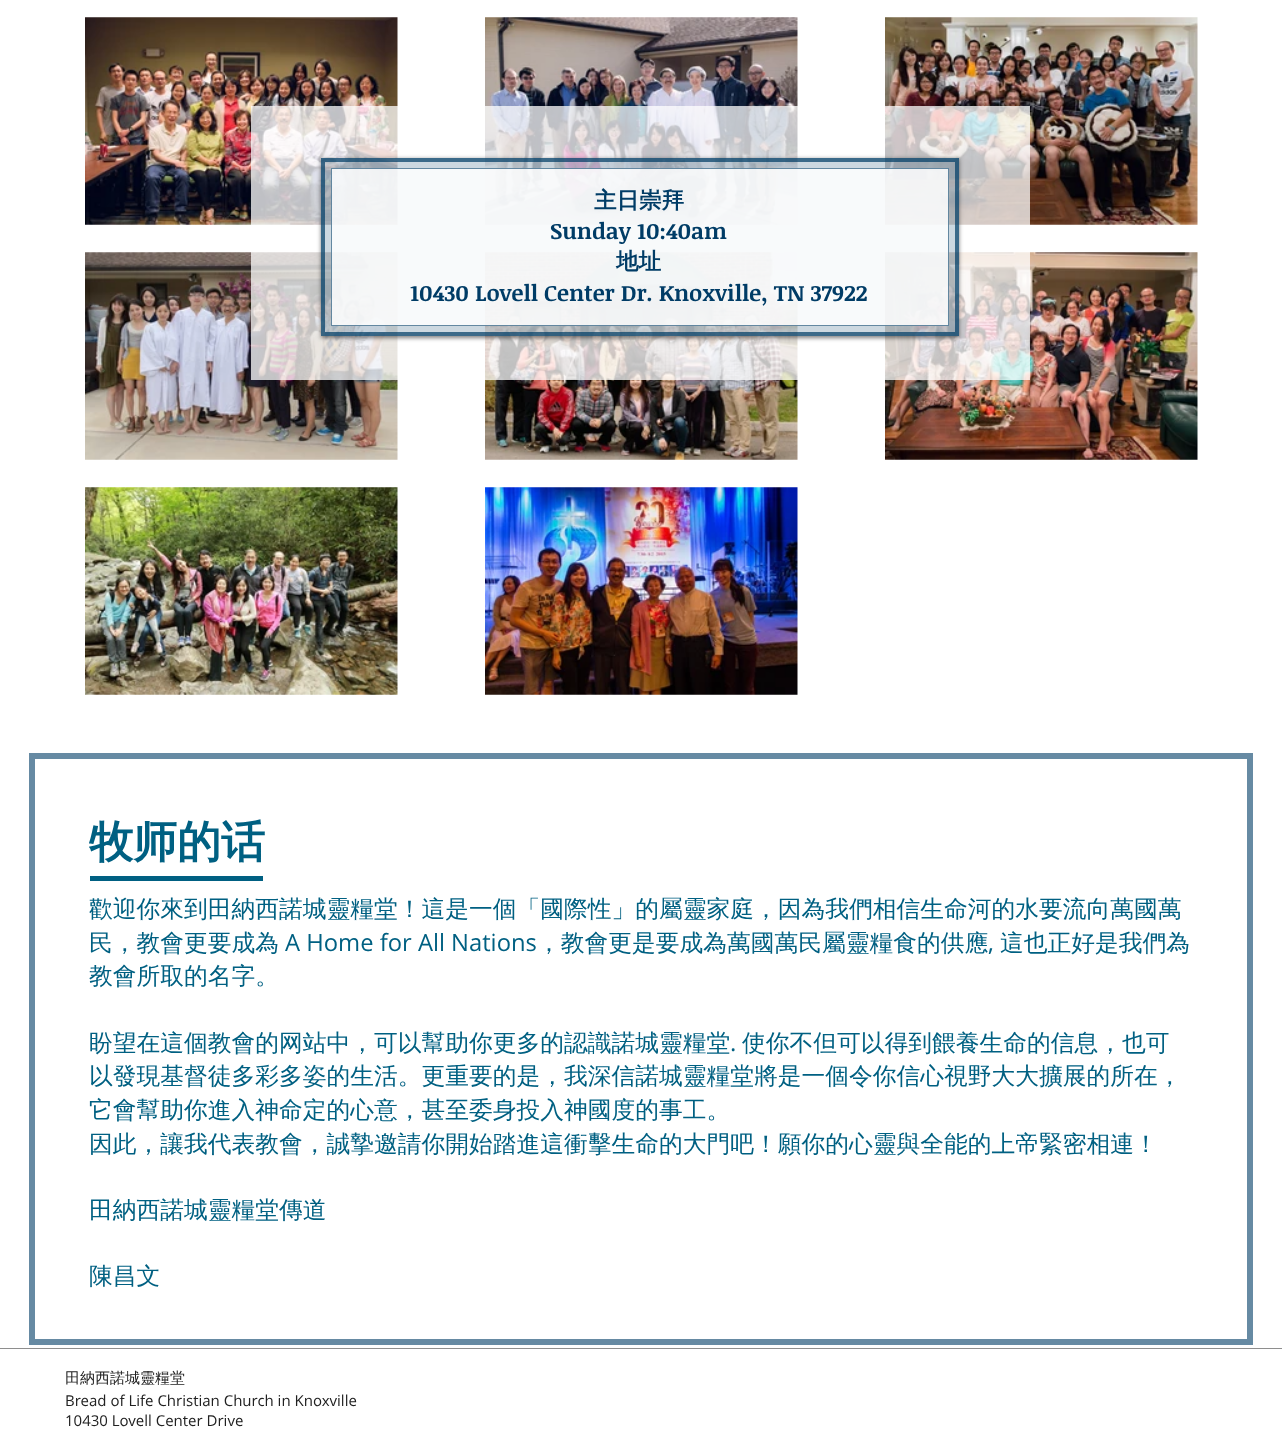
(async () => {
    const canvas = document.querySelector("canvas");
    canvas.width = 1282;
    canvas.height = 1436;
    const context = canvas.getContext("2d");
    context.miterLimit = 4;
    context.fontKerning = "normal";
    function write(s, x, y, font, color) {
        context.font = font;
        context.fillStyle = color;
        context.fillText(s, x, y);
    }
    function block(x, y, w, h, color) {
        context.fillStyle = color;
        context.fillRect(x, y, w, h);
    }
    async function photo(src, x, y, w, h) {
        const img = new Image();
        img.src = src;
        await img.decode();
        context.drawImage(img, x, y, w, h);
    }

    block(0, 0, 1282, 1436, "rgb(255, 255, 255)");
    await photo("media/1.png", 85, 17, 313, 208);
    await photo("media/2.png", 485, 17, 313, 208);
    await photo("media/3.png", 885, 17, 313, 208);
    await photo("media/4.png", 85, 252, 313, 208);
    await photo("media/5.png", 485, 252, 313, 208);
    await photo("media/6.png", 885, 252, 313, 208);
    await photo("media/7.png", 85, 487, 313, 208);
    await photo("media/8.png", 485, 487, 313, 208);
    block(251, 106, 779, 274, "rgba(255, 255, 255, 0.75)");
    context.save();
    context.beginPath();
    context.moveTo(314, 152);
    context.lineTo(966, 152);
    context.lineTo(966, 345);
    context.lineTo(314, 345);
    context.closePath();
    context.moveTo(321, 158);
    context.lineTo(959, 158);
    context.lineTo(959, 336);
    context.lineTo(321, 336);
    context.closePath();
    context.clip("evenodd");
    context.fillStyle = "rgba(0, 0, 0, 0.5)";
    context.filter = "blur(2px)";
    context.beginPath();
    context.rect(321, 159, 638, 179);
    context.fill();
    context.filter = "none";
    context.restore();
    block(321, 158, 638, 178, "rgba(0, 60, 102, 0.2)");
    context.strokeStyle = "rgba(0, 60, 102, 0.71)";
    context.lineWidth = 4;
    context.strokeRect(323, 160, 634, 174);
    block(331, 168, 618, 158, "rgba(255, 255, 255, 0.86)");
    context.strokeStyle = "rgba(0, 60, 102, 0.6)";
    context.lineWidth = 1;
    context.strokeRect(331.5, 168.5, 617, 157);
    write("主日崇拜", 594, 208, "bold 22.5px WenQuanYi Zen Hei", "rgb(0, 60, 102)");
    write("Sunday 10:40am", 550, 239, "bold 22.5px Noticia Text", "rgb(0, 60, 102)");
    write("地址", 616, 269, "bold 22.5px WenQuanYi Zen Hei", "rgb(0, 60, 102)");
    write("10430 Lovell Center Dr. Knoxville, TN 37922", 410, 301, "bold 22.5px Noticia Text", "rgb(0, 60, 102)");
    context.strokeStyle = "rgb(102, 138, 163)";
    context.lineWidth = 6;
    context.strokeRect(32, 756, 1218, 586);
    write("牧师的话", 89, 857, "bold 44px WenQuanYi Zen Hei", "rgb(0, 96, 130)");
    block(90, 876, 173, 5, "rgb(0, 96, 130)");
    write("歡迎你來到田納西諾城靈糧堂！這是一個「國際性」的屬靈家庭，因為我們相信生命河的水要流向萬國萬", 89, 917, "500 23.75px WenQuanYi Zen Hei", "rgb(0, 96, 130)");
    write("民，教會更要成為", 89, 951, "500 23.75px WenQuanYi Zen Hei", "rgb(0, 96, 130)");
    write("A Home for All Nations", 285, 951, "23.75px Open Sans", "rgb(0, 96, 130)");
    write("，教會更是要成為萬國萬民屬靈糧食的供應", 537, 951, "500 23.75px WenQuanYi Zen Hei", "rgb(0, 96, 130)");
    write(",", 988, 951, "23.75px Open Sans", "rgb(0, 96, 130)");
    write("這也正好是我們為", 1000, 951, "500 23.75px WenQuanYi Zen Hei", "rgb(0, 96, 130)");
    write("教會所取的名字。", 89, 984, "500 23.75px WenQuanYi Zen Hei", "rgb(0, 96, 130)");
    write("盼望在這個教會的网站中，可以幫助你更多的認識諾城靈糧堂", 89, 1051, "500 23.75px WenQuanYi Zen Hei", "rgb(0, 96, 130)");
    write(".", 730, 1051, "23.75px Open Sans", "rgb(0, 96, 130)");
    write("使你不但可以得到餵養生命的信息，也可", 742, 1051, "500 23.75px WenQuanYi Zen Hei", "rgb(0, 96, 130)");
    write("以發現基督徒多彩多姿的生活。更重要的是，我深信諾城靈糧堂將是一個令你信心視野大大擴展的所在，", 89, 1084, "500 23.75px WenQuanYi Zen Hei", "rgb(0, 96, 130)");
    write("它會幫助你進入神命定的心意，甚至委身投入神國度的事工。", 89, 1118, "500 23.75px WenQuanYi Zen Hei", "rgb(0, 96, 130)");
    write("因此，讓我代表教會，誠摯邀請你開始踏進這衝擊生命的大門吧！願你的心靈與全能的上帝緊密相連！", 89, 1152, "500 23.75px WenQuanYi Zen Hei", "rgb(0, 96, 130)");
    write("田納西諾城靈糧堂傳道", 89, 1218, "500 23.75px WenQuanYi Zen Hei", "rgb(0, 96, 130)");
    write("陳昌文", 89, 1284, "500 23.75px WenQuanYi Zen Hei", "rgb(0, 96, 130)");
    block(0, 1348, 1282, 1, "rgb(142, 142, 142)");
    write("田納西諾城靈糧堂", 65, 1383, "500 15px WenQuanYi Zen Hei", "rgb(33, 33, 33)");
    write("Bread of Life Christian Church in Knoxville", 65, 1406, "15px Open Sans", "rgb(33, 33, 33)");
    write("10430 Lovell Center Drive", 65, 1426, "15px Open Sans", "rgb(33, 33, 33)");
})();
